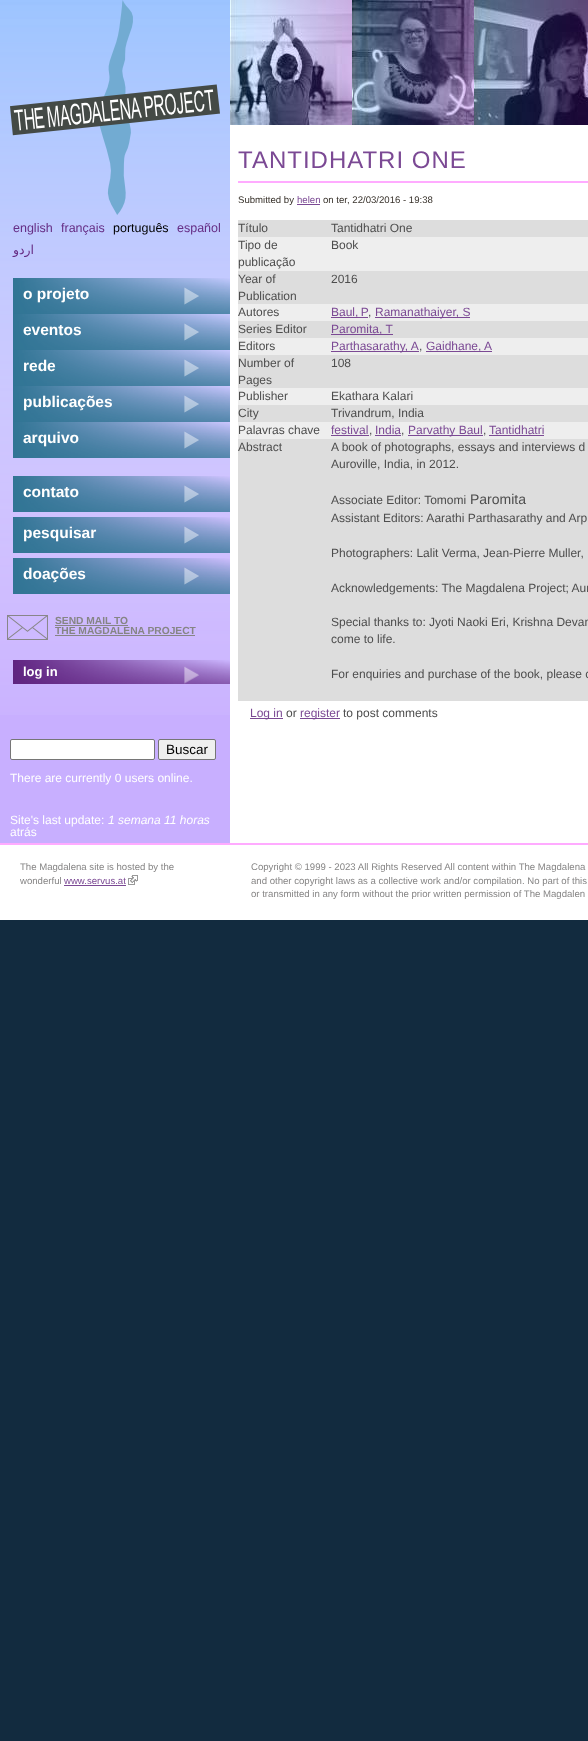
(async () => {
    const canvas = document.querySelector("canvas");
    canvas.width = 588;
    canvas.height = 1741;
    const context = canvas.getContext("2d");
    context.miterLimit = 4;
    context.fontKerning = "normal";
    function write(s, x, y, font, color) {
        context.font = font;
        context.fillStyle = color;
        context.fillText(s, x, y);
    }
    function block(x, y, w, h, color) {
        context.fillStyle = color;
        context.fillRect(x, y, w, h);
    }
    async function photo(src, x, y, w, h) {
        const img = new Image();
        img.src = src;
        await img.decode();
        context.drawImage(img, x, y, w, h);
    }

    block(0, 0, 588, 1741, "rgb(18, 43, 63)");
    block(230, 125, 358, 718, "rgb(255, 255, 255)");
    block(0, 5, 230, 838, "rgb(200, 175, 255)");
    await photo("media/1.png", 0, 0, 230, 715);
    await photo("media/2.png", 10, 0, 210, 215);
    await photo("media/3.png", 230, 0, 122, 125);
    await photo("media/4.png", 352, 0, 122, 125);
    await photo("media/5.png", 474, 0, 114, 125);
    write("english", 13, 232, "12.5px Liberation Sans", "rgb(102, 45, 133)");
    write("français", 61, 232, "12.5px Liberation Sans", "rgb(102, 45, 133)");
    write("português", 113, 232, "12.5px Liberation Sans", "rgb(0, 0, 0)");
    write("español", 177, 232, "12.5px Liberation Sans", "rgb(102, 45, 133)");
    context.direction = "rtl";
    write("اردو", 34, 254, "12.5px DejaVu Sans", "rgb(102, 45, 133)");
    await photo("media/6.png", 13, 278, 217, 36);
    context.direction = "ltr";
    write("o projeto", 23, 299, "bold 15.5px Liberation Sans", "rgb(255, 255, 255)");
    await photo("media/7.png", 13, 314, 217, 36);
    write("eventos", 23, 335, "bold 15.5px Liberation Sans", "rgb(255, 255, 255)");
    await photo("media/8.png", 13, 350, 217, 36);
    write("rede", 23, 371, "bold 15.5px Liberation Sans", "rgb(255, 255, 255)");
    await photo("media/9.png", 13, 386, 217, 36);
    write("publicações", 23, 407, "bold 15.5px Liberation Sans", "rgb(255, 255, 255)");
    await photo("media/10.png", 13, 422, 217, 36);
    write("arquivo", 23, 443, "bold 15.5px Liberation Sans", "rgb(255, 255, 255)");
    await photo("media/11.png", 13, 476, 217, 36);
    write("contato", 23, 497, "bold 15.5px Liberation Sans", "rgb(255, 255, 255)");
    await photo("media/12.png", 13, 517, 217, 36);
    write("pesquisar", 23, 538, "bold 15.5px Liberation Sans", "rgb(255, 255, 255)");
    await photo("media/13.png", 13, 558, 217, 36);
    write("doações", 23, 579, "bold 15.5px Liberation Sans", "rgb(255, 255, 255)");
    await photo("media/14.png", 7, 615, 41, 25);
    write("SEND MAIL TO", 55, 624, "bold 10.25px Liberation Sans", "rgb(134, 133, 133)");
    block(55, 625, 73, 1, "rgb(134, 133, 133)");
    write("THE MAGDALENA PROJECT", 55, 634, "bold 10.25px Liberation Sans", "rgb(134, 133, 133)");
    block(55, 635, 140, 1, "rgb(134, 133, 133)");
    await photo("media/15.png", 13, 660, 217, 24);
    write("log in", 23, 676, "bold 13px Liberation Sans", "rgb(255, 255, 255)");
    context.letterSpacing = "1px";
    write("TANTIDHATRI ONE", 238, 168, "24px Liberation Sans", "rgb(123, 73, 148)");
    block(238, 181, 350, 2, "rgb(255, 171, 255)");
    context.letterSpacing = "0px";
    write("Submitted by", 238, 203, "9.6px Liberation Sans", "rgb(56, 50, 43)");
    write("helen", 297, 203, "9.6px Liberation Sans", "rgb(123, 73, 148)");
    block(297, 204, 23, 1, "rgb(123, 73, 148)");
    write("on ter, 22/03/2016 - 19:38", 323, 203, "9.6px Liberation Sans", "rgb(56, 50, 43)");
    block(238, 220, 350, 17, "rgb(221, 221, 221)");
    write("Título", 238, 232, "12px Liberation Sans", "rgb(77, 77, 77)");
    write("Tantidhatri One", 331, 232, "12px Liberation Sans", "rgb(77, 77, 77)");
    block(238, 237, 350, 34, "rgb(238, 238, 238)");
    write("Tipo de", 238, 249, "12px Liberation Sans", "rgb(77, 77, 77)");
    write("publicação", 238, 266, "12px Liberation Sans", "rgb(77, 77, 77)");
    write("Book", 331, 249, "12px Liberation Sans", "rgb(77, 77, 77)");
    block(238, 271, 350, 33, "rgb(221, 221, 221)");
    write("Year of", 238, 283, "12px Liberation Sans", "rgb(77, 77, 77)");
    write("Publication", 238, 300, "12px Liberation Sans", "rgb(77, 77, 77)");
    write("2016", 331, 283, "12px Liberation Sans", "rgb(77, 77, 77)");
    block(238, 304, 350, 17, "rgb(238, 238, 238)");
    write("Autores", 238, 316, "12px Liberation Sans", "rgb(77, 77, 77)");
    block(331, 317, 37, 1, "rgb(123, 73, 148)");
    context.wordSpacing = "-1px";
    write("Baul, P", 331, 316, "12px Liberation Sans", "rgb(123, 73, 148)");
    context.wordSpacing = "0px";
    write(",", 368, 316, "12px Liberation Sans", "rgb(77, 77, 77)");
    block(375, 317, 95, 1, "rgb(123, 73, 148)");
    write("Ramanathaiyer, S", 375, 316, "12px Liberation Sans", "rgb(123, 73, 148)");
    block(238, 321, 350, 17, "rgb(221, 221, 221)");
    write("Series Editor", 238, 333, "12px Liberation Sans", "rgb(77, 77, 77)");
    block(331, 334, 62, 1, "rgb(123, 73, 148)");
    write("Paromita, T", 331, 333, "12px Liberation Sans", "rgb(123, 73, 148)");
    block(238, 338, 350, 17, "rgb(238, 238, 238)");
    write("Editors", 238, 350, "12px Liberation Sans", "rgb(77, 77, 77)");
    block(331, 351, 88, 1, "rgb(123, 73, 148)");
    write("Parthasarathy, A", 331, 350, "12px Liberation Sans", "rgb(123, 73, 148)");
    write(",", 419, 350, "12px Liberation Sans", "rgb(77, 77, 77)");
    block(426, 351, 66, 1, "rgb(123, 73, 148)");
    write("Gaidhane, A", 426, 350, "12px Liberation Sans", "rgb(123, 73, 148)");
    block(238, 355, 350, 33, "rgb(221, 221, 221)");
    write("Number of", 238, 367, "12px Liberation Sans", "rgb(77, 77, 77)");
    write("Pages", 238, 384, "12px Liberation Sans", "rgb(77, 77, 77)");
    write("108", 331, 367, "12px Liberation Sans", "rgb(77, 77, 77)");
    block(238, 388, 350, 17, "rgb(238, 238, 238)");
    write("Publisher", 238, 400, "12px Liberation Sans", "rgb(77, 77, 77)");
    write("Ekathara Kalari", 331, 400, "12px Liberation Sans", "rgb(77, 77, 77)");
    block(238, 405, 350, 17, "rgb(221, 221, 221)");
    write("City", 238, 417, "12px Liberation Sans", "rgb(77, 77, 77)");
    write("Trivandrum, India", 331, 417, "12px Liberation Sans", "rgb(77, 77, 77)");
    block(238, 422, 350, 17, "rgb(238, 238, 238)");
    write("Palavras chave", 238, 434, "12px Liberation Sans", "rgb(77, 77, 77)");
    write("festival", 331, 434, "12px Liberation Sans", "rgb(123, 73, 148)");
    block(331, 435, 38, 1, "rgb(123, 73, 148)");
    write(",", 369, 434, "12px Liberation Sans", "rgb(77, 77, 77)");
    write("India", 375, 434, "12px Liberation Sans", "rgb(123, 73, 148)");
    block(375, 435, 26, 1, "rgb(123, 73, 148)");
    write(",", 401, 434, "12px Liberation Sans", "rgb(77, 77, 77)");
    block(408, 435, 75, 1, "rgb(123, 73, 148)");
    write("Parvathy Baul", 408, 434, "12px Liberation Sans", "rgb(123, 73, 148)");
    write(",", 483, 434, "12px Liberation Sans", "rgb(77, 77, 77)");
    write("Tantidhatri", 489, 434, "12px Liberation Sans", "rgb(123, 73, 148)");
    block(489, 435, 55, 1, "rgb(123, 73, 148)");
    block(238, 439, 350, 262, "rgb(221, 221, 221)");
    write("Abstract", 238, 451, "12px Liberation Sans", "rgb(77, 77, 77)");
    write("A book of photographs, essays and interviews d", 331, 451, "12px Liberation Sans", "rgb(77, 77, 77)");
    write("Auroville, India, in 2012.", 331, 468, "12px Liberation Sans", "rgb(77, 77, 77)");
    write("Associate Editor: Tomomi", 331, 504, "12px Liberation Sans", "rgb(77, 77, 77)");
    write("Paromita", 470, 504, "14px Liberation Sans", "rgb(77, 77, 77)");
    write("Assistant Editors: Aarathi Parthasarathy and Arp", 331, 522, "12px Liberation Sans", "rgb(77, 77, 77)");
    write("Photographers: Lalit Verma, Jean-Pierre Muller,", 331, 557, "12px Liberation Sans", "rgb(77, 77, 77)");
    write("Acknowledgements: The Magdalena Project; Aur", 331, 592, "12px Liberation Sans", "rgb(77, 77, 77)");
    write("Special thanks to: Jyoti Naoki Eri, Krishna Devan", 331, 626, "12px Liberation Sans", "rgb(77, 77, 77)");
    write("come to life.", 331, 643, "12px Liberation Sans", "rgb(77, 77, 77)");
    write("For enquiries and purchase of the book, please c", 331, 678, "12px Liberation Sans", "rgb(77, 77, 77)");
    block(250, 718, 33, 1, "rgb(123, 73, 148)");
    write("Log in", 250, 717, "12px Liberation Sans", "rgb(123, 73, 148)");
    write("or", 286, 717, "12px Liberation Sans", "rgb(77, 77, 77)");
    block(300, 718, 40, 1, "rgb(123, 73, 148)");
    write("register", 300, 717, "12px Liberation Sans", "rgb(123, 73, 148)");
    write("to post comments", 343, 717, "12px Liberation Sans", "rgb(77, 77, 77)");
    context.fillStyle = "rgb(255, 255, 255)";
    context.beginPath();
    context.roundRect(10.5, 739.5, 144, 20, 1.5);
    context.fill();
    context.strokeStyle = "rgb(118, 118, 118)";
    context.stroke();
    context.fillStyle = "rgb(239, 239, 239)";
    context.beginPath();
    context.roundRect(158.5, 739.5, 57, 20, 1.5);
    context.fill();
    context.stroke();
    write("Buscar", 166, 754, "13.5px Liberation Sans", "rgb(0, 0, 0)");
    write("There are currently 0 users online.", 10, 782, "12px Liberation Sans", "rgb(255, 255, 255)");
    write("Site's last update:", 10, 824, "12px Liberation Sans", "rgb(255, 255, 255)");
    write("1 semana 11 horas", 108, 824, "italic 12px Liberation Sans", "rgb(255, 255, 255)");
    write("atrás", 10, 836, "12px Liberation Sans", "rgb(255, 255, 255)");
    block(0, 845, 588, 75, "rgb(255, 255, 255)");
    block(0, 843, 588, 2, "rgb(255, 171, 255)");
    write("The Magdalena site is hosted by the", 20, 870, "9.6px Liberation Sans", "rgb(134, 133, 133)");
    write("wonderful", 20, 884, "9.6px Liberation Sans", "rgb(134, 133, 133)");
    write("www.servus.at", 64, 884, "9.6px Liberation Sans", "rgb(123, 73, 148)");
    block(64, 885, 62, 1, "rgb(123, 73, 148)");
    await photo("media/16.png", 128, 875, 10, 10);
    write("Copyright © 1999 - 2023 All Rights Reserved All content within The Magdalena", 251, 870, "9.6px Liberation Sans", "rgb(134, 133, 133)");
    write("and other copyright laws as a collective work and/or compilation. No part of this", 251, 884, "9.6px Liberation Sans", "rgb(134, 133, 133)");
    write("or transmitted in any form without the prior written permission of The Magdalen", 251, 897, "9.6px Liberation Sans", "rgb(134, 133, 133)");
})();
